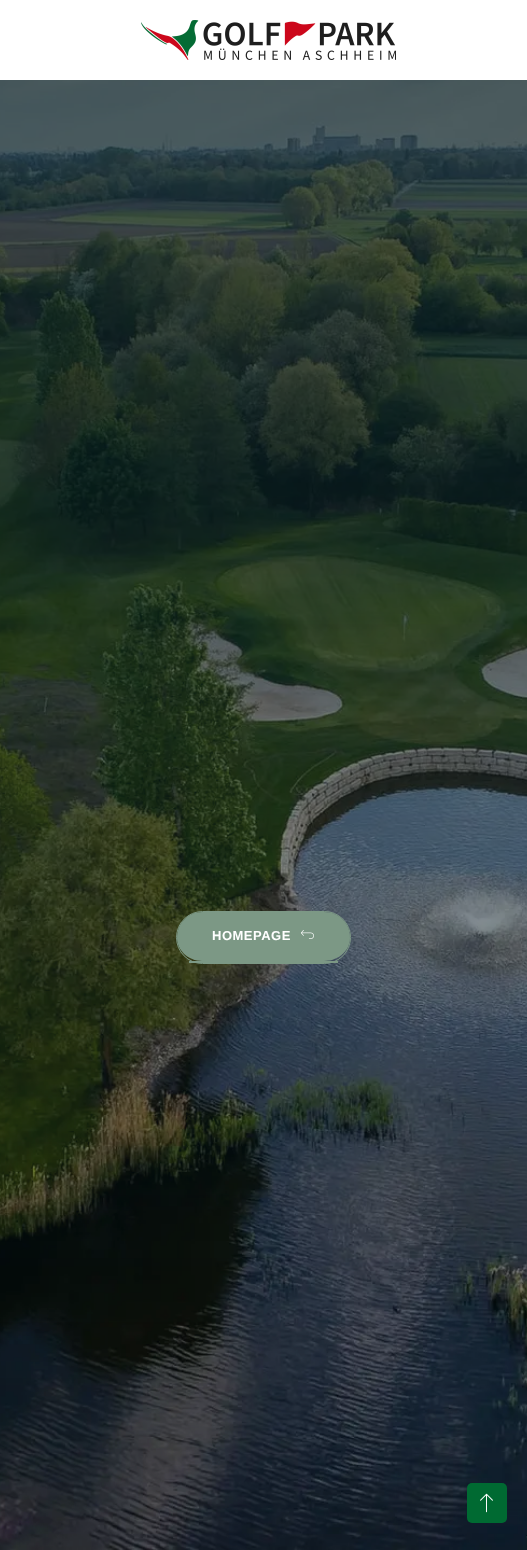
(async () => {
    const canvas = document.querySelector("canvas");
    canvas.width = 527;
    canvas.height = 1550;
    const context = canvas.getContext("2d");
    context.miterLimit = 4;
    context.fontKerning = "normal";
    function write(s, x, y, font, color) {
        context.font = font;
        context.fillStyle = color;
        context.fillText(s, x, y);
    }
    function block(x, y, w, h, color) {
        context.fillStyle = color;
        context.fillRect(x, y, w, h);
    }
    function card(x, y, w, h, r, color) {
        context.fillStyle = color;
        context.beginPath();
        context.roundRect(x, y, w, h, r);
        context.fill();
    }
    async function photo(src, x, y, w, h) {
        const img = new Image();
        img.src = src;
        await img.decode();
        context.drawImage(img, x, y, w, h);
    }

    block(0, 0, 527, 1550, "rgb(255, 255, 255)");
    await photo("media/1.png", 141, 20, 255, 40);
    await photo("media/2.png", 0, 80, 527, 1470);
    context.fillStyle = "rgb(124, 152, 133)";
    context.beginPath();
    context.moveTo(202, 912);
    context.lineTo(324, 912);
    context.bezierCurveTo(339, 912, 350, 923, 350, 938);
    context.bezierCurveTo(350, 950, 339, 961, 324, 961);
    context.lineTo(202, 961);
    context.bezierCurveTo(188, 961, 177, 950, 177, 938);
    context.bezierCurveTo(177, 923, 188, 912, 202, 912);
    context.closePath();
    context.fill();
    context.beginPath();
    context.roundRect(176.5, 911.5, 174, 52, 26);
    context.strokeStyle = "rgb(124, 152, 133)";
    context.stroke();
    block(189, 961, 149, 2, "rgb(124, 152, 133)");
    context.letterSpacing = "0.5px";
    write("HOMEPAGE", 212, 940, "bold 13px Liberation Sans", "rgb(255, 255, 255)");
    await photo("media/3.png", 301, 930, 13, 9);
    card(467, 1483, 40, 40, 5, "rgb(0, 106, 50)");
    await photo("media/4.png", 480, 1493, 13, 20);
})();
